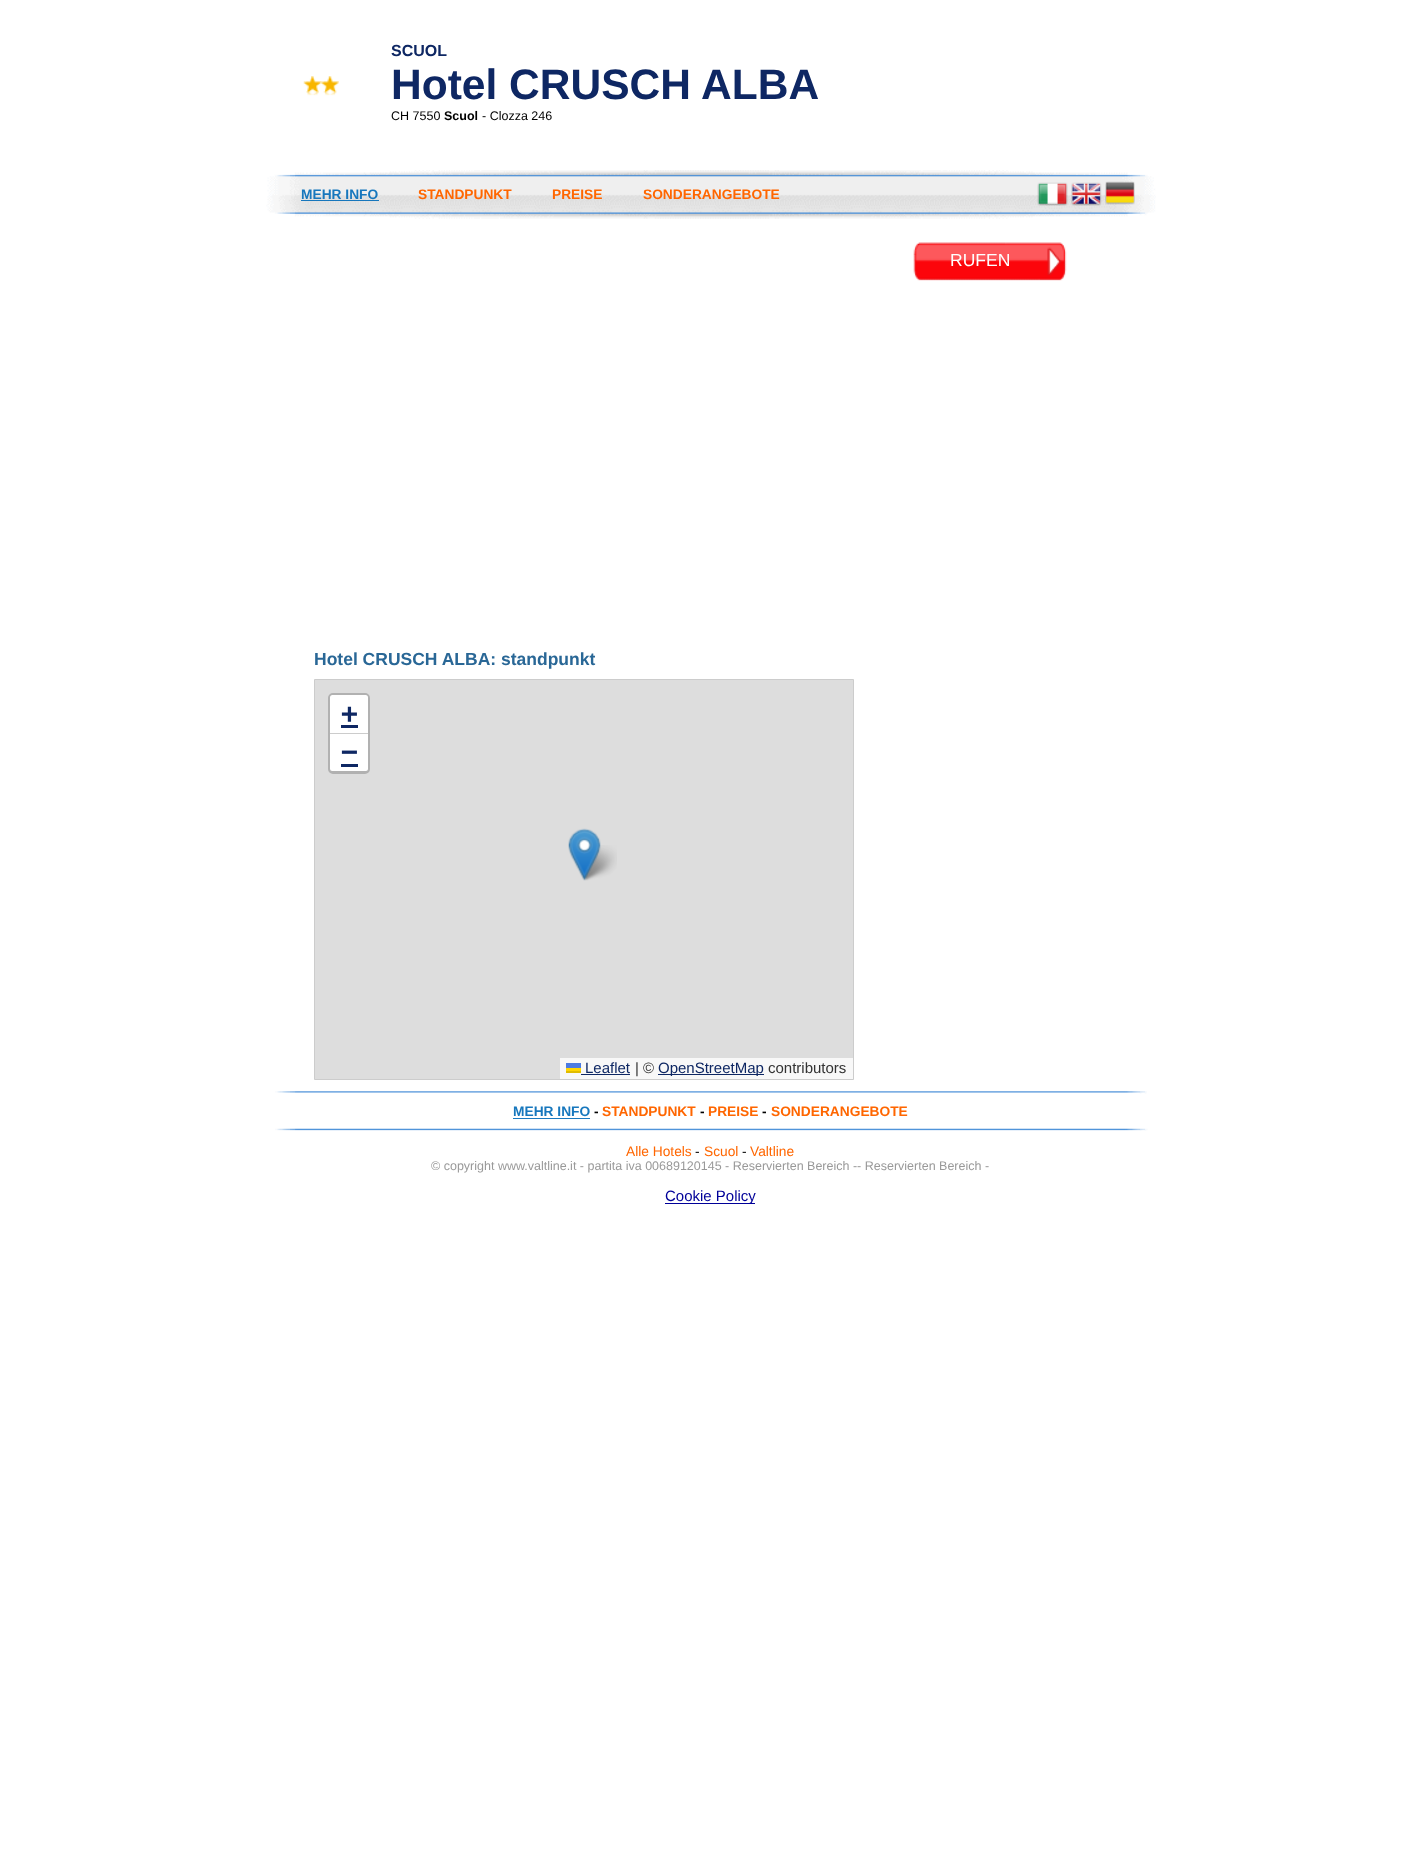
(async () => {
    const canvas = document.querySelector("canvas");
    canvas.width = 1419;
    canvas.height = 1853;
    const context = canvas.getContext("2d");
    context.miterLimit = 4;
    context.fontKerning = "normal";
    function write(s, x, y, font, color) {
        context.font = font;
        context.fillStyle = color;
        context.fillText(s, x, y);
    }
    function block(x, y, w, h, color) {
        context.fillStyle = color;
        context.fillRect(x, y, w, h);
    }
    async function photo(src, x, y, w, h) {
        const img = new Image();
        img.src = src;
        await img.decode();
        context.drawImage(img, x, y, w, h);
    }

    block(0, 0, 1419, 1853, "rgb(255, 255, 255)");
    await photo("media/1.png", 303, 76, 36, 20);
    write("SCUOL", 391, 56, "bold 16px Liberation Sans", "rgb(14, 39, 99)");
    write("Hotel CRUSCH ALBA", 391, 99, "bold 42.5px Liberation Sans", "rgb(14, 39, 99)");
    write("CH 7550", 391, 120, "12.5px Liberation Sans", "rgb(0, 0, 0)");
    write("Scuol", 444, 120, "bold 12.5px Liberation Sans", "rgb(0, 0, 0)");
    write("- Clozza 246", 482, 120, "12.5px Liberation Sans", "rgb(0, 0, 0)");
    await photo("media/2.png", 266, 170, 890, 49);
    write("MEHR INFO", 301, 199, "bold 13.75px Liberation Sans", "rgb(23, 119, 189)");
    block(301, 200, 78, 1, "rgba(0, 106, 184, 0.9)");
    write("STANDPUNKT", 418, 199, "bold 13.75px Liberation Sans", "rgb(255, 102, 0)");
    write("PREISE", 552, 199, "bold 13.75px Liberation Sans", "rgb(255, 102, 0)");
    write("SONDERANGEBOTE", 643, 199, "bold 13.75px Liberation Sans", "rgb(255, 102, 0)");
    await photo("media/3.png", 1037, 182, 31, 24);
    await photo("media/4.png", 1071, 182, 31, 24);
    await photo("media/5.png", 1105, 181, 30, 24);
    await photo("media/6.png", 913, 242, 154, 39);
    write("RUFEN", 950, 266, "17.5px Liberation Sans", "rgb(255, 255, 255)");
    write("Hotel CRUSCH ALBA: standpunkt", 314, 665, "bold 17.5px Liberation Sans", "rgb(41, 103, 150)");
    context.fillStyle = "rgb(221, 221, 221)";
    context.beginPath();
    context.rect(314.5, 679.5, 539, 400);
    context.fill();
    context.strokeStyle = "rgb(204, 204, 204)";
    context.stroke();
    context.beginPath();
    context.roundRect(329.5, 694.5, 39, 78, 3.5);
    context.strokeStyle = "rgb(177, 177, 177)";
    context.lineWidth = 3;
    context.stroke();
    context.fillStyle = "rgb(255, 255, 255)";
    context.beginPath();
    context.roundRect(330, 695, 38, 39, [2.5, 2.5, 0, 0]);
    context.fill();
    block(330, 733, 38, 1, "rgb(204, 204, 204)");
    write("+", 341, 723, "bold 28px DejaVu Sans Mono", "rgb(14, 39, 99)");
    block(341, 725, 17, 3, "rgb(14, 39, 99)");
    context.fillStyle = "rgb(255, 255, 255)";
    context.beginPath();
    context.roundRect(330, 734, 38, 37, [0, 0, 2.5, 2.5]);
    context.fill();
    write("−", 341, 761, "bold 28px DejaVu Sans Mono", "rgb(14, 39, 99)");
    block(341, 764, 17, 3, "rgb(14, 39, 99)");
    block(560, 1058, 293, 21, "rgb(248, 248, 248)");
    write("Leaflet", 585, 1073, "15px Liberation Sans", "rgb(14, 39, 99)");
    block(581, 1074, 49, 1, "rgb(14, 39, 99)");
    block(566, 1063, 15, 5, "rgb(76, 123, 225)");
    block(566, 1068, 15, 3, "rgb(255, 213, 0)");
    block(566, 1071, 15, 2, "rgb(224, 188, 0)");
    write("| ©", 635, 1073, "15px Liberation Sans", "rgb(51, 51, 51)");
    block(658, 1074, 106, 1, "rgb(14, 39, 99)");
    write("OpenStreetMap", 658, 1073, "15px Liberation Sans", "rgb(14, 39, 99)");
    write("contributors", 768, 1073, "15px Liberation Sans", "rgb(51, 51, 51)");
    await photo("media/8.png", 580, 845, 37, 36);
    await photo("media/7.png", 568, 828, 33, 53);
    await photo("media/9.png", 275, 1091, 872, 3);
    write("MEHR INFO", 513, 1116, "bold 13.75px Liberation Sans", "rgb(23, 119, 189)");
    block(513, 1118, 77, 1, "rgb(26, 121, 191)");
    write("-", 594, 1116, "bold 13.75px Liberation Sans", "rgb(0, 0, 0)");
    write("STANDPUNKT", 602, 1116, "bold 13.75px Liberation Sans", "rgb(255, 102, 0)");
    write("-", 700, 1116, "bold 13.75px Liberation Sans", "rgb(0, 0, 0)");
    write("PREISE", 708, 1116, "bold 13.75px Liberation Sans", "rgb(255, 102, 0)");
    write("-", 762, 1116, "bold 13.75px Liberation Sans", "rgb(0, 0, 0)");
    write("SONDERANGEBOTE", 771, 1116, "bold 13.75px Liberation Sans", "rgb(255, 102, 0)");
    await photo("media/10.png", 275, 1128, 873, 3);
    write("Alle Hotels", 626, 1156, "13.75px Liberation Sans", "rgb(255, 102, 0)");
    write("-", 695, 1156, "13.75px Liberation Sans", "rgb(0, 0, 0)");
    write("Scuol", 704, 1156, "13.75px Liberation Sans", "rgb(255, 102, 0)");
    write("-", 742, 1156, "13.75px Liberation Sans", "rgb(0, 0, 0)");
    write("Valtline", 750, 1156, "13.75px Liberation Sans", "rgb(255, 102, 0)");
    write("© copyright www.valtline.it - partita iva 00689120145 - Reservierten Bereich -- Reservierten Bereich -", 431, 1170, "12.5px Liberation Sans", "rgb(153, 153, 153)");
    block(665, 1203, 90, 1, "rgb(0, 0, 153)");
    write("Cookie Policy", 665, 1201, "15px Liberation Sans", "rgb(0, 0, 153)");
})();
